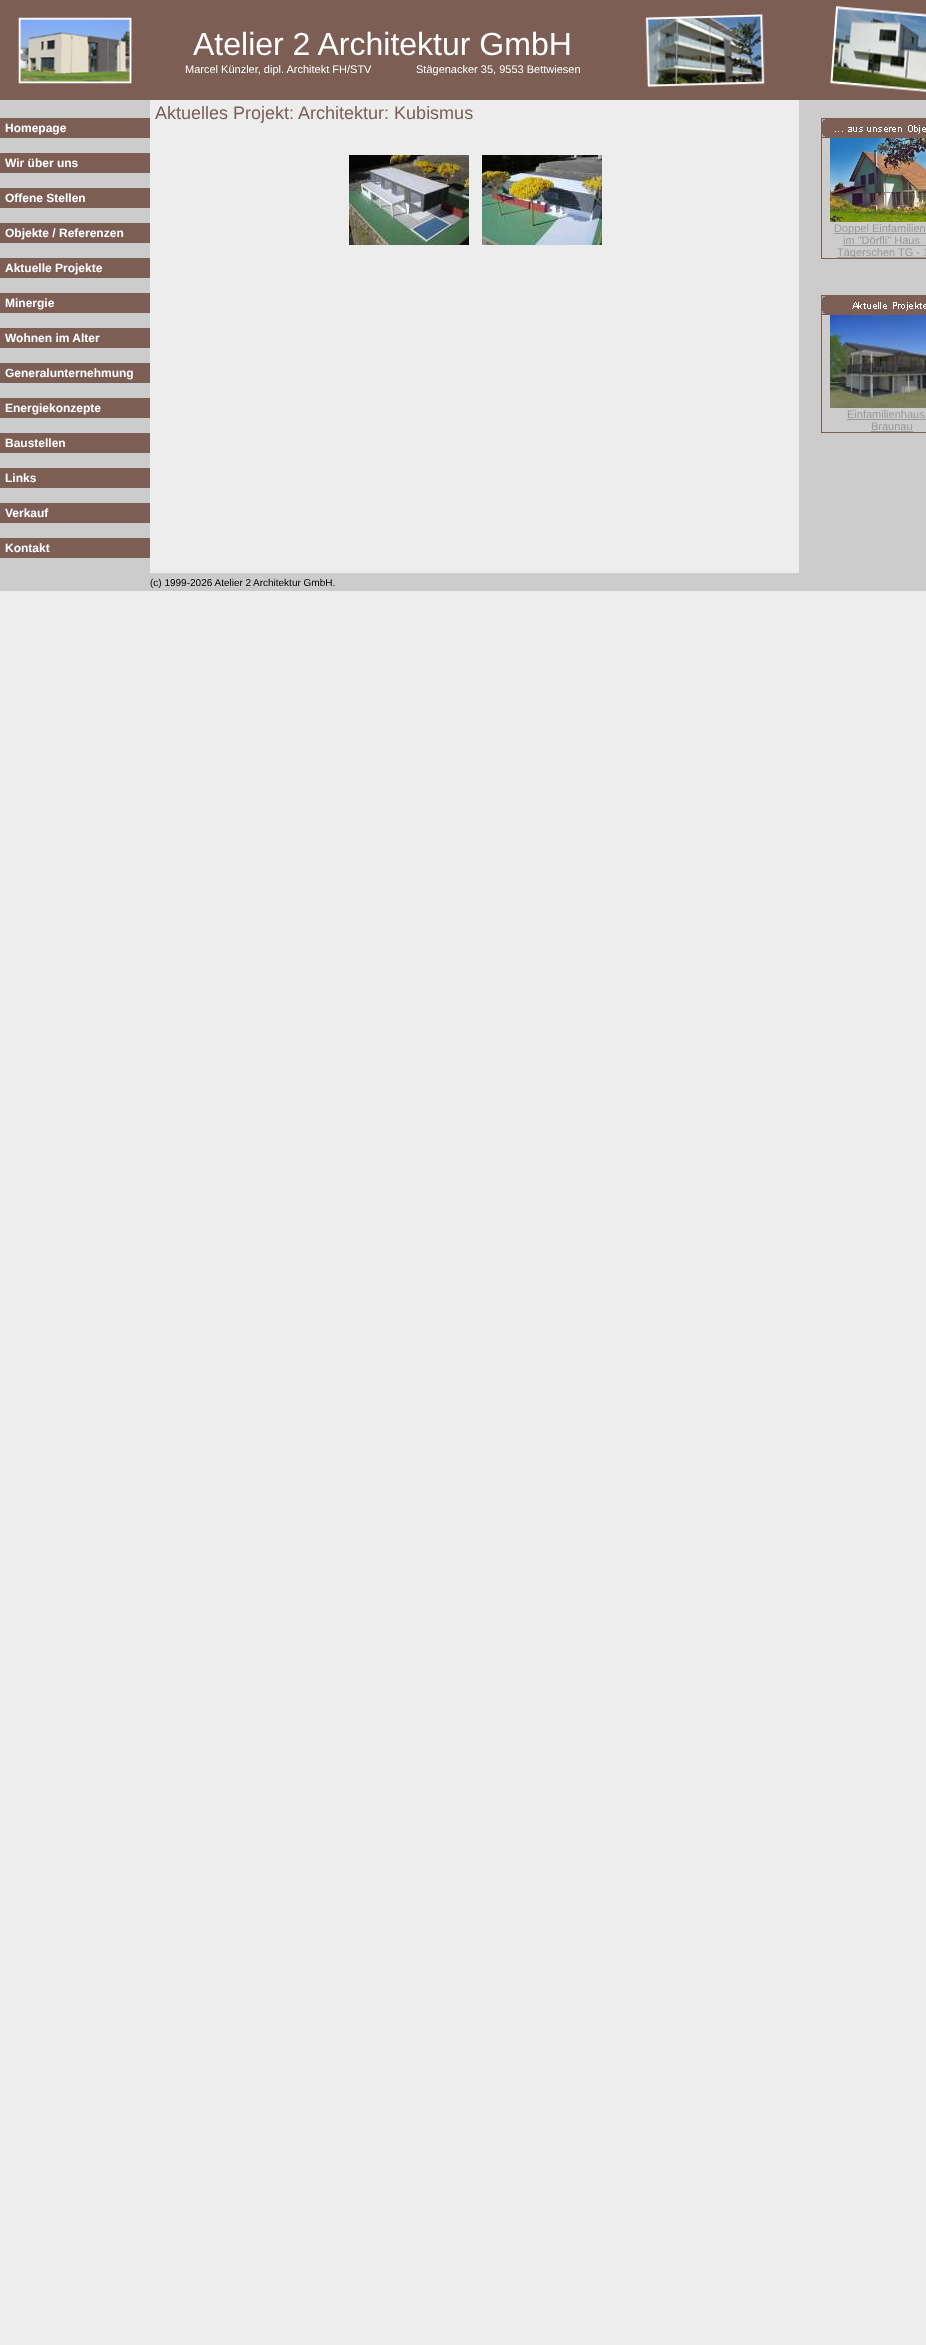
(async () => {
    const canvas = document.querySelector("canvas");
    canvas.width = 926;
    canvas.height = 2345;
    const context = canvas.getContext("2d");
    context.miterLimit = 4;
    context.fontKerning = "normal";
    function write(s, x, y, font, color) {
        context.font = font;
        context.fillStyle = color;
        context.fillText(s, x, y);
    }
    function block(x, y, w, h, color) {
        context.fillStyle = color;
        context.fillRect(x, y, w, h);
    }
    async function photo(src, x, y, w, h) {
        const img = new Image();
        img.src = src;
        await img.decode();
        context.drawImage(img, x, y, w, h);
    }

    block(0, 0, 926, 2345, "rgb(237, 237, 237)");
    block(0, 0, 926, 100, "rgb(124, 94, 84)");
    await photo("media/1.png", 18, 17, 114, 67);
    write("Atelier 2 Architektur GmbH", 193, 55, "32px Liberation Sans", "rgb(255, 255, 255)");
    write("Marcel Künzler, dipl. Architekt FH/STV", 185, 73, "11px Liberation Sans", "rgb(255, 255, 255)");
    write("Stägenacker 35, 9553 Bettwiesen", 416, 73, "11px Liberation Sans", "rgb(255, 255, 255)");
    await photo("media/2.png", 645, 14, 120, 74);
    await photo("media/3.png", 830, 6, 96, 86);
    write("Aktuelles Projekt: Architektur: Kubismus", 155, 119, "18px Liberation Sans", "rgb(124, 94, 84)");
    await photo("media/4.png", 349, 155, 120, 90);
    await photo("media/5.png", 482, 155, 120, 90);
    block(0, 100, 150, 491, "rgb(204, 204, 204)");
    block(0, 118, 150, 20, "rgb(124, 94, 84)");
    write("Homepage", 5, 132, "bold 12px Liberation Sans", "rgb(255, 255, 255)");
    block(0, 153, 150, 20, "rgb(124, 94, 84)");
    write("Wir über uns", 5, 167, "bold 12px Liberation Sans", "rgb(255, 255, 255)");
    block(0, 188, 150, 20, "rgb(124, 94, 84)");
    write("Offene Stellen", 5, 202, "bold 12px Liberation Sans", "rgb(255, 255, 255)");
    block(0, 223, 150, 20, "rgb(124, 94, 84)");
    write("Objekte / Referenzen", 5, 237, "bold 12px Liberation Sans", "rgb(255, 255, 255)");
    block(0, 258, 150, 20, "rgb(124, 94, 84)");
    write("Aktuelle Projekte", 5, 272, "bold 12px Liberation Sans", "rgb(255, 255, 255)");
    block(0, 293, 150, 20, "rgb(124, 94, 84)");
    write("Minergie", 5, 307, "bold 12px Liberation Sans", "rgb(255, 255, 255)");
    block(0, 328, 150, 20, "rgb(124, 94, 84)");
    write("Wohnen im Alter", 5, 342, "bold 12px Liberation Sans", "rgb(255, 255, 255)");
    block(0, 363, 150, 20, "rgb(124, 94, 84)");
    write("Generalunternehmung", 5, 377, "bold 12px Liberation Sans", "rgb(255, 255, 255)");
    block(0, 398, 150, 20, "rgb(124, 94, 84)");
    write("Energiekonzepte", 5, 412, "bold 12px Liberation Sans", "rgb(255, 255, 255)");
    block(0, 433, 150, 20, "rgb(124, 94, 84)");
    write("Baustellen", 5, 447, "bold 12px Liberation Sans", "rgb(255, 255, 255)");
    block(0, 468, 150, 20, "rgb(124, 94, 84)");
    write("Links", 5, 482, "bold 12px Liberation Sans", "rgb(255, 255, 255)");
    block(0, 503, 150, 20, "rgb(124, 94, 84)");
    write("Verkauf", 5, 517, "bold 12px Liberation Sans", "rgb(255, 255, 255)");
    block(0, 538, 150, 20, "rgb(124, 94, 84)");
    write("Kontakt", 5, 552, "bold 12px Liberation Sans", "rgb(255, 255, 255)");
    block(799, 100, 127, 473, "rgb(204, 204, 204)");
    await photo("media/6.png", 821, 118, 105, 20);
    block(821, 138, 1, 120, "rgb(124, 94, 84)");
    await photo("media/7.png", 830, 138, 96, 84);
    block(834, 233, 92, 1, "rgb(153, 153, 153)");
    write("Doppel Einfamilien", 834, 232, "11px Liberation Sans", "rgb(153, 153, 153)");
    write("im \"Dörfli\" Haus", 843, 244, "11px Liberation Sans", "rgb(153, 153, 153)");
    block(843, 245, 83, 1, "rgb(153, 153, 153)");
    block(837, 257, 89, 1, "rgb(153, 153, 153)");
    write("Tägerschen TG - 1", 837, 256, "11px Liberation Sans", "rgb(153, 153, 153)");
    block(821, 258, 105, 1, "rgb(124, 94, 84)");
    await photo("media/8.png", 821, 295, 105, 20);
    block(821, 315, 1, 117, "rgb(124, 94, 84)");
    await photo("media/9.png", 830, 315, 96, 93);
    write("Einfamilienhaus", 847, 418, "11px Liberation Sans", "rgb(153, 153, 153)");
    block(847, 419, 79, 1, "rgb(153, 153, 153)");
    write("Braunau", 871, 430, "11px Liberation Sans", "rgb(153, 153, 153)");
    block(871, 431, 42, 1, "rgb(153, 153, 153)");
    block(821, 432, 105, 1, "rgb(124, 94, 84)");
    block(150, 573, 776, 18, "rgb(204, 204, 204)");
    write("(c) 1999-2026 Atelier 2", 150, 586, "10px Liberation Sans", "rgb(0, 0, 0)");
    write("Architektur GmbH.", 253, 586, "10px Liberation Sans", "rgb(0, 0, 0)");
})();
